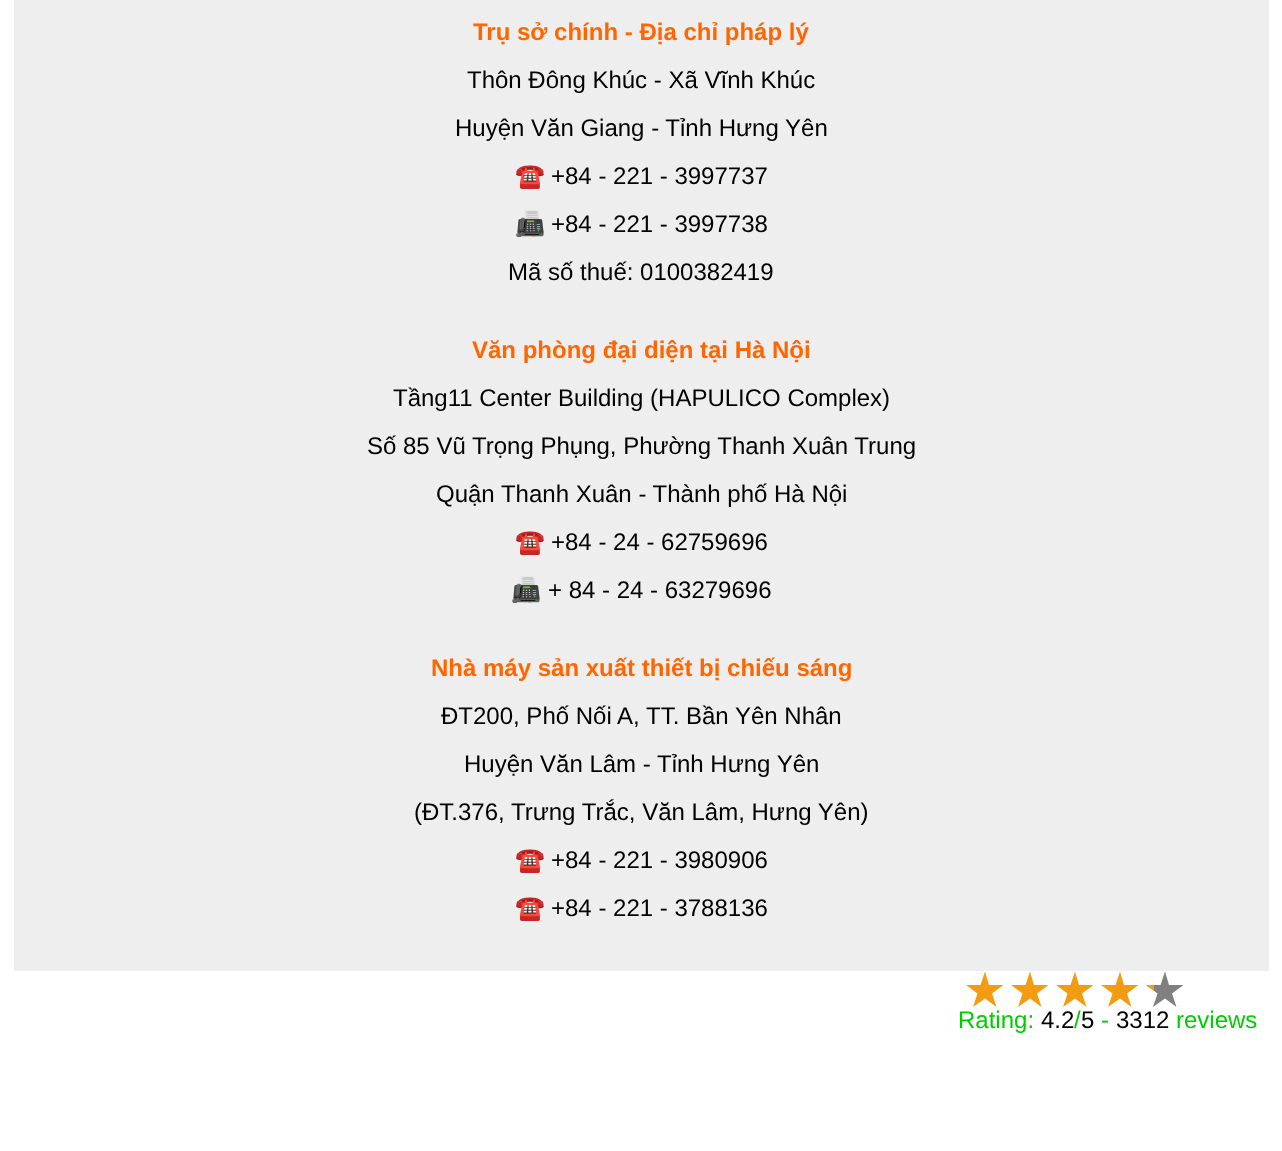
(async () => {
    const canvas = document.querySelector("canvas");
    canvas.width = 1282;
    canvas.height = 1151;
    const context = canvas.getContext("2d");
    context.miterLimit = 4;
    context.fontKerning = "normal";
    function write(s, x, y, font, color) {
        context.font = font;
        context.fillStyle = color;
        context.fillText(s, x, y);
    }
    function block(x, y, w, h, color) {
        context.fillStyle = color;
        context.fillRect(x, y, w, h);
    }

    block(0, 0, 1282, 1151, "rgb(255, 255, 255)");
    block(14, 0, 1255, 971, "rgb(238, 238, 238)");
    write("Trụ sở chính - Địa chỉ pháp lý", 473, 40, "bold 24px Liberation Sans", "rgb(255, 102, 0)");
    write("Thôn Đông Khúc - Xã Vĩnh Khúc", 467, 88, "24px Liberation Sans", "rgb(0, 0, 0)");
    write("Huyện Văn Giang - Tỉnh Hưng Yên", 455, 136, "24px Liberation Sans", "rgb(0, 0, 0)");
    write("☎️", 515, 184, "24px Noto Color Emoji", "rgb(0, 0, 0)");
    write("+84 - 221 - 3997737", 551, 184, "24px Liberation Sans", "rgb(0, 0, 0)");
    write("📠", 515, 232, "24px Noto Color Emoji", "rgb(0, 0, 0)");
    write("+84 - 221 - 3997738", 551, 232, "24px Liberation Sans", "rgb(0, 0, 0)");
    write("Mã số thuế: 0100382419", 508, 280, "24px Liberation Sans", "rgb(0, 0, 0)");
    write("Văn phòng đại diện tại Hà Nội", 472, 358, "bold 24px Liberation Sans", "rgb(255, 102, 0)");
    write("Tầng11 Center Building (HAPULICO Complex)", 393, 406, "24px Liberation Sans", "rgb(0, 0, 0)");
    write("Số 85 Vũ Trọng Phụng, Phường Thanh Xuân Trung", 367, 454, "24px Liberation Sans", "rgb(0, 0, 0)");
    write("Quận Thanh Xuân - Thành phố Hà Nội", 436, 502, "24px Liberation Sans", "rgb(0, 0, 0)");
    write("☎️", 515, 550, "24px Noto Color Emoji", "rgb(0, 0, 0)");
    write("+84 - 24 - 62759696", 551, 550, "24px Liberation Sans", "rgb(0, 0, 0)");
    write("📠", 511, 598, "24px Noto Color Emoji", "rgb(0, 0, 0)");
    write("+ 84 - 24 - 63279696", 548, 598, "24px Liberation Sans", "rgb(0, 0, 0)");
    write("Nhà máy sản xuất thiết bị chiếu sáng", 431, 676, "bold 24px Liberation Sans", "rgb(255, 102, 0)");
    write("ĐT200, Phố Nối A, TT. Bần Yên Nhân", 441, 724, "24px Liberation Sans", "rgb(0, 0, 0)");
    write("Huyện Văn Lâm - Tỉnh Hưng Yên", 464, 772, "24px Liberation Sans", "rgb(0, 0, 0)");
    write("(ĐT.376, Trưng Trắc, Văn Lâm, Hưng Yên)", 414, 820, "24px Liberation Sans", "rgb(0, 0, 0)");
    write("☎️", 515, 868, "24px Noto Color Emoji", "rgb(0, 0, 0)");
    write("+84 - 221 - 3980906", 551, 868, "24px Liberation Sans", "rgb(0, 0, 0)");
    write("☎️", 515, 916, "24px Noto Color Emoji", "rgb(0, 0, 0)");
    write("+84 - 221 - 3788136", 551, 916, "24px Liberation Sans", "rgb(0, 0, 0)");
    context.fillStyle = "rgb(243, 156, 18)";
    context.beginPath();
    context.moveTo(985, 971.5);
    context.lineTo(989, 985);
    context.lineTo(1003.5, 985);
    context.lineTo(992, 993.5);
    context.lineTo(996.5, 1007);
    context.lineTo(985, 998.5);
    context.lineTo(973, 1007);
    context.lineTo(977.5, 993.5);
    context.lineTo(966, 985);
    context.lineTo(980.5, 985);
    context.closePath();
    context.fill();
    context.beginPath();
    context.moveTo(1030, 971.5);
    context.lineTo(1034, 985);
    context.lineTo(1048.5, 985);
    context.lineTo(1037, 993.5);
    context.lineTo(1041.5, 1007);
    context.lineTo(1030, 998.5);
    context.lineTo(1018, 1007);
    context.lineTo(1022.5, 993.5);
    context.lineTo(1011, 985);
    context.lineTo(1025.5, 985);
    context.closePath();
    context.fill();
    context.beginPath();
    context.moveTo(1075, 971.5);
    context.lineTo(1079, 985);
    context.lineTo(1093.5, 985);
    context.lineTo(1082, 993.5);
    context.lineTo(1086.5, 1007);
    context.lineTo(1075, 998.5);
    context.lineTo(1063, 1007);
    context.lineTo(1067.5, 993.5);
    context.lineTo(1056, 985);
    context.lineTo(1070.5, 985);
    context.closePath();
    context.fill();
    context.beginPath();
    context.moveTo(1120, 971.5);
    context.lineTo(1124, 985);
    context.lineTo(1138.5, 985);
    context.lineTo(1127, 993.5);
    context.lineTo(1131.5, 1007);
    context.lineTo(1120, 998.5);
    context.lineTo(1108, 1007);
    context.lineTo(1112.5, 993.5);
    context.lineTo(1101, 985);
    context.lineTo(1115.5, 985);
    context.closePath();
    context.fill();
    context.fillStyle = "rgb(128, 128, 128)";
    context.beginPath();
    context.moveTo(1165, 971.5);
    context.lineTo(1169, 985);
    context.lineTo(1183.5, 985);
    context.lineTo(1172, 993.5);
    context.lineTo(1176.5, 1007);
    context.lineTo(1165, 998.5);
    context.lineTo(1153, 1007);
    context.lineTo(1157.5, 993.5);
    context.lineTo(1146, 985);
    context.lineTo(1160.5, 985);
    context.closePath();
    context.fill();
    context.save();
    context.beginPath();
    context.rect(1146, 971, 8, 37);
    context.clip();
    context.fillStyle = "rgb(243, 156, 18)";
    context.beginPath();
    context.moveTo(1165, 971.5);
    context.lineTo(1169, 985);
    context.lineTo(1183.5, 985);
    context.lineTo(1172, 993.5);
    context.lineTo(1176.5, 1007);
    context.lineTo(1165, 998.5);
    context.lineTo(1153, 1007);
    context.lineTo(1157.5, 993.5);
    context.lineTo(1146, 985);
    context.lineTo(1160.5, 985);
    context.closePath();
    context.fill();
    context.restore();
    write("Rating:", 958, 1028, "24px Liberation Sans", "rgb(0, 204, 0)");
    write("4.2 5", 1041, 1028, "24px Liberation Sans", "rgb(0, 0, 0)");
    write("/", 1074, 1028, "24px Liberation Sans", "rgb(0, 204, 0)");
    write("reviews", 1176, 1028, "24px Liberation Sans", "rgb(0, 204, 0)");
    write("-", 1101, 1028, "24px Liberation Sans", "rgb(0, 204, 0)");
    write("3312", 1116, 1028, "24px Liberation Sans", "rgb(0, 0, 0)");
})();
